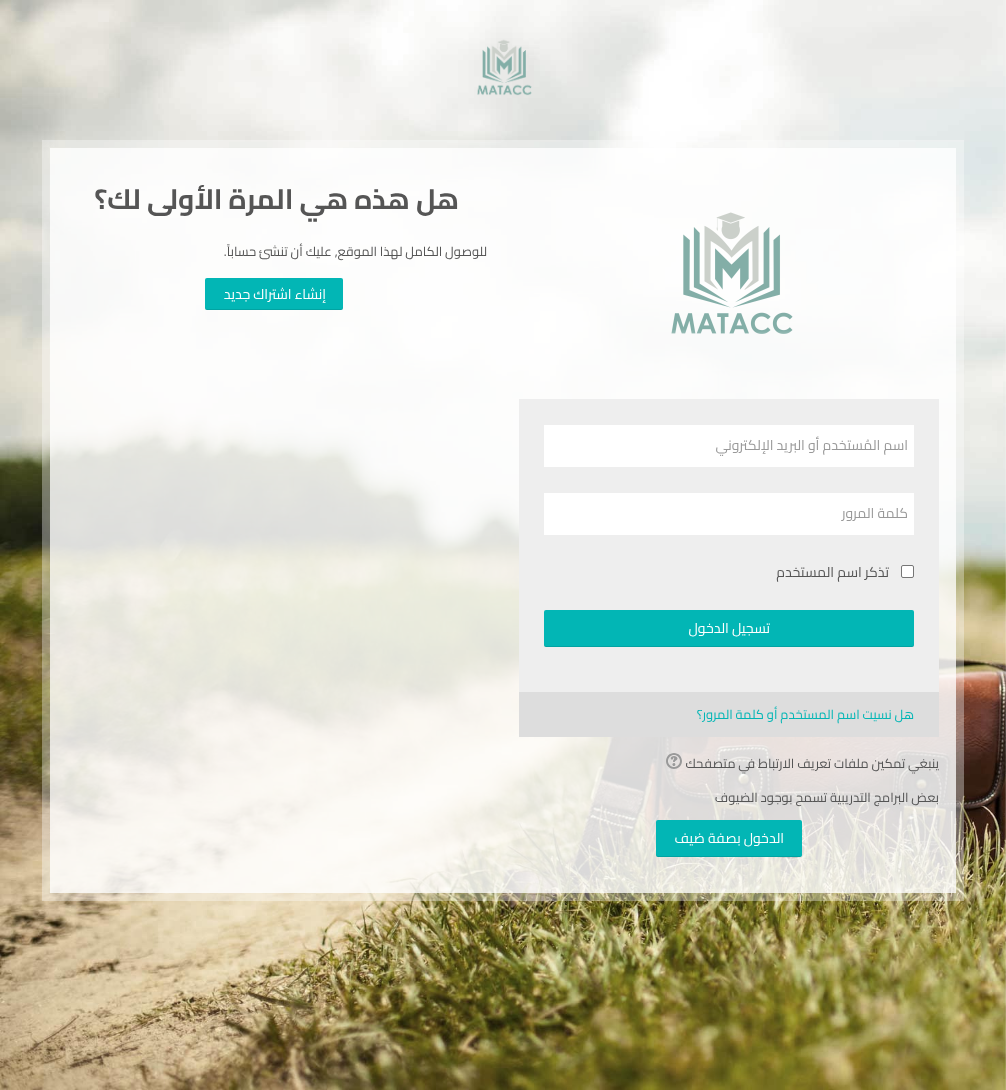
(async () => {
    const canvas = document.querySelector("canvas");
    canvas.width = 1006;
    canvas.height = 1090;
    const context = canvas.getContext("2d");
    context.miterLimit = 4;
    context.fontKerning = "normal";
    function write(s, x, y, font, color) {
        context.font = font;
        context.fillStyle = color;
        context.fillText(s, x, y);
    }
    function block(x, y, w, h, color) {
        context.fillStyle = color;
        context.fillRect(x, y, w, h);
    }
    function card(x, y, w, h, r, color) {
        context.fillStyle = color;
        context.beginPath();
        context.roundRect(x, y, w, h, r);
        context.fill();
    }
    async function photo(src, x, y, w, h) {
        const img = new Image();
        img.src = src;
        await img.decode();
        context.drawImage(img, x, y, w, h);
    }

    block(0, 0, 1006, 1090, "rgb(255, 255, 255)");
    await photo("media/1.png", 0, 0, 1006, 1090);
    await photo("media/2.png", 477, 39, 55, 57);
    block(50, 148, 906, 745, "rgba(255, 255, 255, 0.85)");
    context.beginPath();
    context.moveTo(46, 144);
    context.lineTo(960, 144);
    context.lineTo(960, 897);
    context.lineTo(46, 897);
    context.closePath();
    context.strokeStyle = "rgba(255, 255, 255, 0.35)";
    context.lineWidth = 8;
    context.stroke();
    context.direction = "rtl";
    write("هل هذه هي المرة الأولى لك؟", 459, 209, "bold 28px Cairo", "rgb(85, 85, 85)");
    write("للوصول الكامل لهذا الموقع, عليك أن تنشئ حساباً.", 487, 256, "13px Cairo", "rgb(85, 85, 85)");
    card(205, 278, 138, 32, 2, "rgb(2, 182, 181)");
    context.fillStyle = "rgba(0, 0, 0, 0.1)";
    context.beginPath();
    context.moveTo(205, 307);
    context.bezierCurveTo(205, 308, 205, 310, 207, 310);
    context.lineTo(341, 310);
    context.bezierCurveTo(343, 310, 343, 308, 343, 307);
    context.bezierCurveTo(343, 308, 342, 309, 341, 309);
    context.lineTo(207, 309);
    context.bezierCurveTo(206, 309, 205, 308, 205, 307);
    context.closePath();
    context.fill();
    write("إنشاء اشتراك جديد", 326, 299, "14px Cairo", "rgb(255, 255, 255)");
    await photo("media/3.png", 671, 212, 122, 122);
    block(519, 399, 420, 293, "rgb(238, 238, 238)");
    block(544, 425, 370, 42, "rgb(255, 255, 255)");
    write("اسم المُستخدم أو البريد الإلكتروني", 908, 450, "14px Cairo", "rgb(153, 153, 153)");
    block(544, 493, 370, 42, "rgb(255, 255, 255)");
    write("كلمة المرور", 908, 518, "14px Cairo", "rgb(153, 153, 153)");
    context.fillStyle = "rgb(255, 255, 255)";
    context.beginPath();
    context.roundRect(901.5, 565.5, 12, 12, 1.5);
    context.fill();
    context.strokeStyle = "rgb(118, 118, 118)";
    context.lineWidth = 1;
    context.stroke();
    write("تذكر اسم المستخدم", 889, 577, "14px Cairo", "rgb(85, 85, 85)");
    card(544, 610, 370, 37, 2, "rgb(2, 182, 181)");
    context.fillStyle = "rgba(0, 0, 0, 0.1)";
    context.beginPath();
    context.moveTo(544, 644);
    context.bezierCurveTo(544, 645, 544, 647, 546, 647);
    context.lineTo(912, 647);
    context.bezierCurveTo(914, 647, 914, 645, 914, 644);
    context.bezierCurveTo(914, 645, 913, 646, 912, 646);
    context.lineTo(546, 646);
    context.bezierCurveTo(545, 646, 544, 645, 544, 644);
    context.closePath();
    context.fill();
    write("تسجيل الدخول", 770, 633, "14px Cairo", "rgb(255, 255, 255)");
    block(519, 692, 420, 45, "rgb(221, 221, 221)");
    write("هل نسيت اسم المستخدم أو كلمة المرور؟", 914, 719, "13px Cairo", "rgb(2, 182, 181)");
    write("ينبغي تمكين ملفات تعريف الارتباط في متصفحك", 939, 768, "13px Cairo", "rgb(85, 85, 85)");
    await photo("media/4.png", 666, 753, 16, 16);
    write("بعض البرامج التدريبية تسمح بوجود الضيوف", 939, 802, "13px Cairo", "rgb(85, 85, 85)");
    card(656, 820, 146, 37, 2, "rgb(2, 182, 181)");
    context.fillStyle = "rgba(0, 0, 0, 0.1)";
    context.beginPath();
    context.moveTo(656, 854);
    context.bezierCurveTo(656, 855, 656, 856, 657, 857);
    context.lineTo(776, 857);
    context.bezierCurveTo(780, 857, 802, 862, 802, 854);
    context.bezierCurveTo(802, 855, 801, 856, 800, 856);
    context.lineTo(658, 856);
    context.bezierCurveTo(657, 856, 656, 855, 656, 854);
    context.closePath();
    context.fill();
    write("الدخول بصفة ضيف", 784, 843, "14px Cairo", "rgb(255, 255, 255)");
})();
